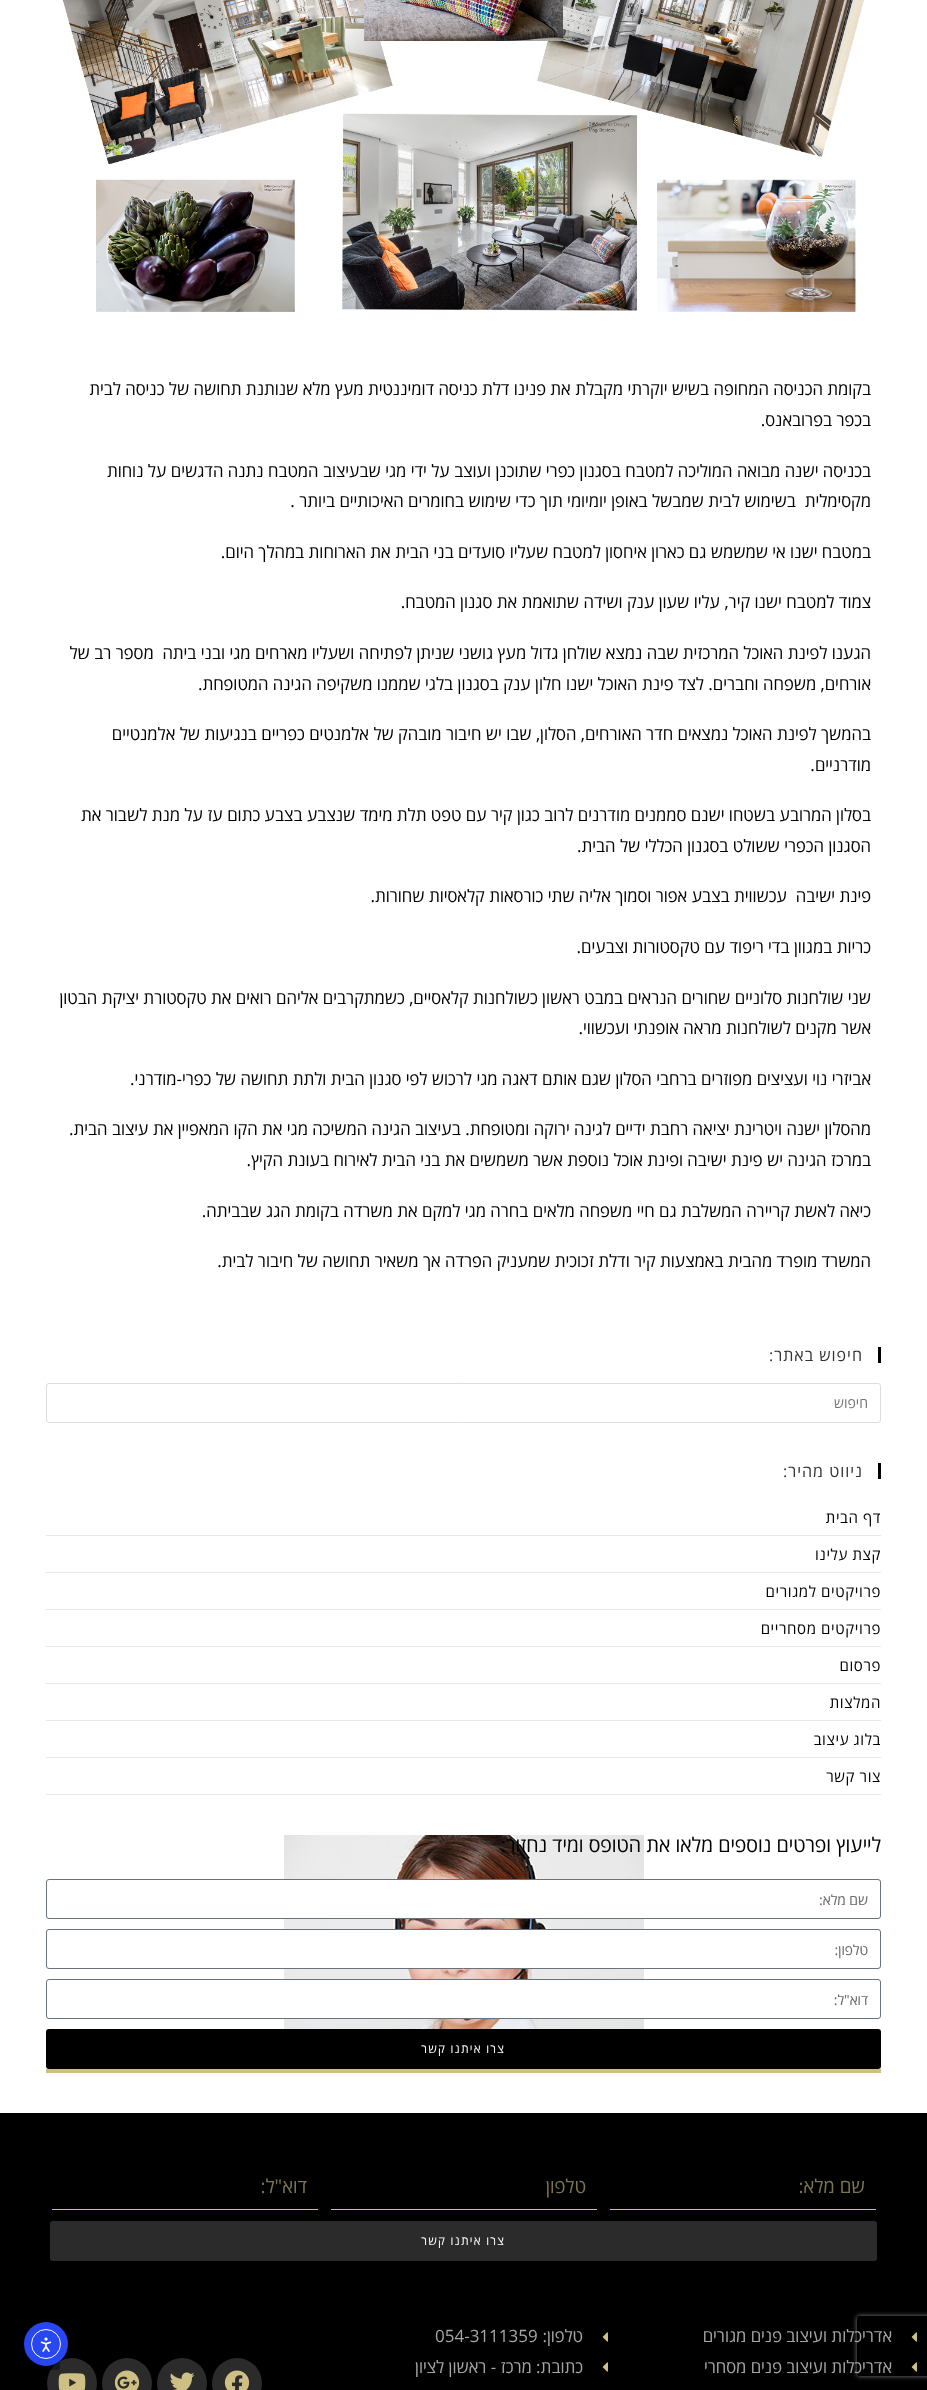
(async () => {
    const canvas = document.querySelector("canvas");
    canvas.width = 927;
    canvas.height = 2390;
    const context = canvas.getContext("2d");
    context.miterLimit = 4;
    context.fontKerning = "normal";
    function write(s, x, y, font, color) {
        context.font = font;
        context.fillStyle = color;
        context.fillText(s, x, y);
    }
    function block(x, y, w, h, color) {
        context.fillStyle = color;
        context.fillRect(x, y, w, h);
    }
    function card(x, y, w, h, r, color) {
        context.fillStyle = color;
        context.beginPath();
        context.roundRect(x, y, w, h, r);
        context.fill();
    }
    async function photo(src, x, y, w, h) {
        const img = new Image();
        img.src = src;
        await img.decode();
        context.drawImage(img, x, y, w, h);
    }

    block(0, 0, 927, 2390, "rgb(255, 255, 255)");
    await photo("media/1.png", 62, 0, 802, 312);
    context.direction = "rtl";
    write("בקומת הכניסה המחופה בשיש יוקרתי מקבלת את פנינו דלת כניסה דומיננטית מעץ מלא שנותנת תחושה של כניסה לבית", 871, 395, "17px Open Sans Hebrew", "rgb(0, 0, 0)");
    write("בכפר בפרובאנס.", 871, 426, "17px Open Sans Hebrew", "rgb(0, 0, 0)");
    write("בכניסה ישנה מבואה המוליכה למטבח בסגנון כפרי שתוכנן ועוצב על ידי מגי שבעיצוב המטבח נתנה הדגשים על נוחות", 871, 477, "17px Open Sans Hebrew", "rgb(0, 0, 0)");
    write("מקסימלית  בשימוש לבית שמבשל באופן יומיומי תוך כדי שימוש בחומרים האיכותיים ביותר .", 871, 507, "17px Open Sans Hebrew", "rgb(0, 0, 0)");
    write("במטבח ישנו אי שמשמש גם כארון איחסון למטבח שעליו סועדים בני הבית את הארוחות במהלך היום.", 871, 558, "17px Open Sans Hebrew", "rgb(0, 0, 0)");
    write("צמוד למטבח ישנו קיר, עליו שעון ענק ושידה שתואמת את סגנון המטבח.", 871, 608, "17px Open Sans Hebrew", "rgb(0, 0, 0)");
    write("הגענו לפינת האוכל המרכזית שבה נמצא שולחן גדול מעץ גושני שניתן לפתיחה ושעליו מארחים מגי ובני ביתה  מספר רב של", 871, 659, "17px Open Sans Hebrew", "rgb(0, 0, 0)");
    write("אורחים, משפחה וחברים. לצד פינת האוכל ישנו חלון ענק בסגנון בלגי שממנו משקיפה הגינה המטופחת.", 871, 690, "17px Open Sans Hebrew", "rgb(0, 0, 0)");
    write("בהמשך לפינת האוכל נמצאים חדר האורחים, הסלון, שבו יש חיבור מובהק של אלמנטים כפריים בנגיעות של אלמנטיים", 871, 740, "17px Open Sans Hebrew", "rgb(0, 0, 0)");
    write("מודרניים.", 871, 771, "17px Open Sans Hebrew", "rgb(0, 0, 0)");
    write("בסלון המרובע בשטחו ישנם סממנים מודרנים לרוב כגון קיר עם טפט תלת מימד שנצבע בצבע כתום עז על מנת לשבור את", 871, 821, "17px Open Sans Hebrew", "rgb(0, 0, 0)");
    write("הסגנון הכפרי ששולט בסגנון הכללי של הבית.", 871, 852, "17px Open Sans Hebrew", "rgb(0, 0, 0)");
    write("פינת ישיבה  עכשווית בצבע אפור וסמוך אליה שתי כורסאות קלאסיות שחורות.", 871, 902, "17px Open Sans Hebrew", "rgb(0, 0, 0)");
    write("כריות במגוון בדי ריפוד עם טקסטורות וצבעים.", 871, 953, "17px Open Sans Hebrew", "rgb(0, 0, 0)");
    write("שני שולחנות סלוניים שחורים הנראים במבט ראשון כשולחנות קלאסיים, כשמתקרבים אליהם רואים את טקסטורת יציקת הבטון", 871, 1004, "17px Open Sans Hebrew", "rgb(0, 0, 0)");
    write("אשר מקנים לשולחנות מראה אופנתי ועכשווי.", 871, 1034, "17px Open Sans Hebrew", "rgb(0, 0, 0)");
    write("אביזרי נוי ועציצים מפוזרים ברחבי הסלון שגם אותם דאגה מגי לרכוש לפי סגנון הבית ולתת תחושה של כפרי-מודרני.", 871, 1085, "17px Open Sans Hebrew", "rgb(0, 0, 0)");
    write("מהסלון ישנה ויטרינת יציאה רחבת ידיים לגינה ירוקה ומטופחת. בעיצוב הגינה המשיכה מגי את הקו המאפיין את עיצוב הבית.", 871, 1135, "17px Open Sans Hebrew", "rgb(0, 0, 0)");
    write("במרכז הגינה יש פינת ישיבה ופינת אוכל נוספת אשר משמשים את בני הבית לאירוח בעונת הקיץ.", 871, 1166, "17px Open Sans Hebrew", "rgb(0, 0, 0)");
    write("כיאה לאשת קריירה המשלבת גם חיי משפחה מלאים בחרה מגי למקם את משרדה בקומת הגג שבביתה.", 871, 1217, "17px Open Sans Hebrew", "rgb(0, 0, 0)");
    write("המשרד מופרד מהבית באמצעות קיר ודלת זכוכית שמעניק הפרדה אך משאיר תחושה של חיבור לבית.", 871, 1267, "17px Open Sans Hebrew", "rgb(0, 0, 0)");
    block(878, 1347, 3, 16, "rgb(0, 0, 0)");
    context.letterSpacing = "1px";
    write("חיפוש באתר:", 863, 1361, "16px Open Sans", "rgb(51, 51, 51)");
    context.beginPath();
    context.roundRect(46.5, 1383.5, 834, 39, 2.5);
    context.strokeStyle = "rgb(221, 221, 221)";
    context.stroke();
    context.letterSpacing = "0px";
    write("חיפוש", 868, 1408, "14px Open Sans", "rgb(117, 117, 117)");
    block(878, 1463, 3, 16, "rgb(0, 0, 0)");
    context.letterSpacing = "1px";
    write("ניווט מהיר:", 863, 1477, "16px Open Sans", "rgb(51, 51, 51)");
    block(46, 1535, 835, 1, "rgb(233, 233, 233)");
    context.letterSpacing = "0.6px";
    write("דף הבית", 881, 1523, "15px Open Sans", "rgb(0, 0, 0)");
    block(46, 1572, 835, 1, "rgb(233, 233, 233)");
    write("קצת עלינו", 881, 1560, "15px Open Sans", "rgb(0, 0, 0)");
    block(46, 1609, 835, 1, "rgb(233, 233, 233)");
    write("פרויקטים למגורים", 881, 1597, "15px Open Sans", "rgb(0, 0, 0)");
    block(46, 1646, 835, 1, "rgb(233, 233, 233)");
    write("פרויקטים מסחריים", 881, 1634, "15px Open Sans", "rgb(0, 0, 0)");
    block(46, 1683, 835, 1, "rgb(233, 233, 233)");
    write("פרסום", 881, 1671, "15px Open Sans", "rgb(0, 0, 0)");
    block(46, 1720, 835, 1, "rgb(233, 233, 233)");
    write("המלצות", 881, 1708, "15px Open Sans", "rgb(0, 0, 0)");
    block(46, 1757, 835, 1, "rgb(233, 233, 233)");
    write("בלוג עיצוב", 881, 1745, "15px Open Sans", "rgb(0, 0, 0)");
    block(46, 1794, 835, 1, "rgb(233, 233, 233)");
    write("צור קשר", 881, 1782, "15px Open Sans", "rgb(0, 0, 0)");
    await photo("media/2.png", 284, 1835, 360, 194);
    block(46, 2069, 835, 4, "rgb(206, 192, 132)");
    context.letterSpacing = "0px";
    write("לייעוץ ופרטים נוספים מלאו את הטופס ומיד נחזור:", 881, 1852, "20px Open Sans Hebrew", "rgb(0, 0, 0)");
    context.fillStyle = "rgb(255, 255, 255)";
    context.beginPath();
    context.roundRect(46.5, 1879.5, 834, 39, 2.5);
    context.fill();
    context.strokeStyle = "rgb(105, 114, 125)";
    context.stroke();
    write("שם מלא:", 868, 1905, "14px Open Sans Hebrew", "rgb(102, 102, 102)");
    context.fillStyle = "rgb(255, 255, 255)";
    context.beginPath();
    context.roundRect(46.5, 1929.5, 834, 39, 2.5);
    context.fill();
    context.stroke();
    write("טלפון:", 868, 1955, "14px Open Sans Hebrew", "rgb(102, 102, 102)");
    context.fillStyle = "rgb(255, 255, 255)";
    context.beginPath();
    context.roundRect(46.5, 1979.5, 834, 39, 2.5);
    context.fill();
    context.stroke();
    write("דוא\"ל:", 868, 2005, "14px Open Sans Hebrew", "rgb(102, 102, 102)");
    card(46, 2029, 835, 40, 3, "rgb(0, 0, 0)");
    context.letterSpacing = "1.25px";
    write("צרו איתנו קשר", 505, 2053, "12px Open Sans Hebrew", "rgb(255, 255, 255)");
    block(0, 2113, 927, 277, "rgb(0, 0, 0)");
    block(610, 2209, 266, 1, "rgb(206, 192, 132)");
    context.letterSpacing = "0px";
    write("שם מלא:", 865, 2193, "19px Open Sans Hebrew", "rgb(124, 115, 79)");
    block(331, 2209, 266, 1, "rgb(206, 192, 132)");
    write("טלפון", 586, 2193, "19px Open Sans Hebrew", "rgb(124, 115, 79)");
    block(52, 2209, 266, 1, "rgb(206, 192, 132)");
    write("דוא\"ל:", 307, 2193, "19px Open Sans Hebrew", "rgb(124, 115, 79)");
    card(50, 2221, 827, 40, 3, "rgb(43, 43, 43)");
    context.letterSpacing = "1.25px";
    write("צרו איתנו קשר", 505, 2245, "12px Open Sans Hebrew", "rgb(255, 255, 255)");
    await photo("media/3.png", 911, 2332, 6, 10);
    await photo("media/3.png", 911, 2362, 6, 10);
    context.save();
    context.beginPath();
    context.moveTo(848, 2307);
    context.lineTo(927, 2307);
    context.lineTo(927, 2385);
    context.lineTo(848, 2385);
    context.closePath();
    context.moveTo(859, 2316);
    context.lineTo(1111, 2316);
    context.bezierCurveTo(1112, 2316, 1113, 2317, 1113, 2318);
    context.lineTo(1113, 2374);
    context.bezierCurveTo(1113, 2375, 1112, 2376, 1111, 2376);
    context.lineTo(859, 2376);
    context.bezierCurveTo(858, 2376, 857, 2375, 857, 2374);
    context.lineTo(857, 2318);
    context.bezierCurveTo(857, 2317, 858, 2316, 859, 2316);
    context.closePath();
    context.clip("evenodd");
    context.fillStyle = "rgb(128, 128, 128)";
    context.filter = "blur(2.5px)";
    context.beginPath();
    context.roundRect(857, 2316, 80, 60, 2);
    context.fill();
    context.filter = "none";
    context.restore();
    context.letterSpacing = "0px";
    write("אדריכלות ועיצוב פנים מגורים", 892, 2342, "17px Open Sans Hebrew", "rgb(165, 165, 165)");
    write("אדריכלות ועיצוב פנים מסחרי", 892, 2373, "17px Open Sans Hebrew", "rgb(165, 165, 165)");
    await photo("media/3.png", 602, 2332, 6, 10);
    write("טלפון:", 583, 2342, "17px Open Sans Hebrew", "rgb(165, 165, 165)");
    context.direction = "ltr";
    write("054-3111359", 435, 2342, "17px Open Sans Hebrew", "rgb(165, 165, 165)");
    await photo("media/3.png", 602, 2362, 6, 10);
    context.direction = "rtl";
    write("כתובת: מרכז - ראשון לציון", 583, 2373, "17px Open Sans Hebrew", "rgb(165, 165, 165)");
    context.fillStyle = "rgb(43, 43, 43)";
    context.beginPath();
    context.arc(237, 2383, 25, 0, Math.PI * 2);
    context.fill();
    await photo("media/4.png", 224, 2370, 26, 20);
    context.beginPath();
    context.arc(182, 2383, 25, 0, Math.PI * 2);
    context.fill();
    await photo("media/5.png", 170, 2372, 25, 18);
    context.beginPath();
    context.arc(127, 2383, 25, 0, Math.PI * 2);
    context.fill();
    await photo("media/6.png", 114, 2370, 26, 20);
    context.beginPath();
    context.arc(72, 2383, 25, 0, Math.PI * 2);
    context.fill();
    await photo("media/7.png", 58, 2373, 28, 17);
    card(20, 2330, 40, 40, 2, "rgba(0, 0, 0, 0.4)");
    context.fillStyle = "rgb(40, 71, 243)";
    context.beginPath();
    context.arc(46, 2344, 22, 0, Math.PI * 2);
    context.fill();
    context.beginPath();
    context.arc(46, 2344, 14.5, 0, Math.PI * 2);
    context.strokeStyle = "rgb(255, 255, 255)";
    context.stroke();
    await photo("media/8.png", 40, 2337, 12, 15);
})();
